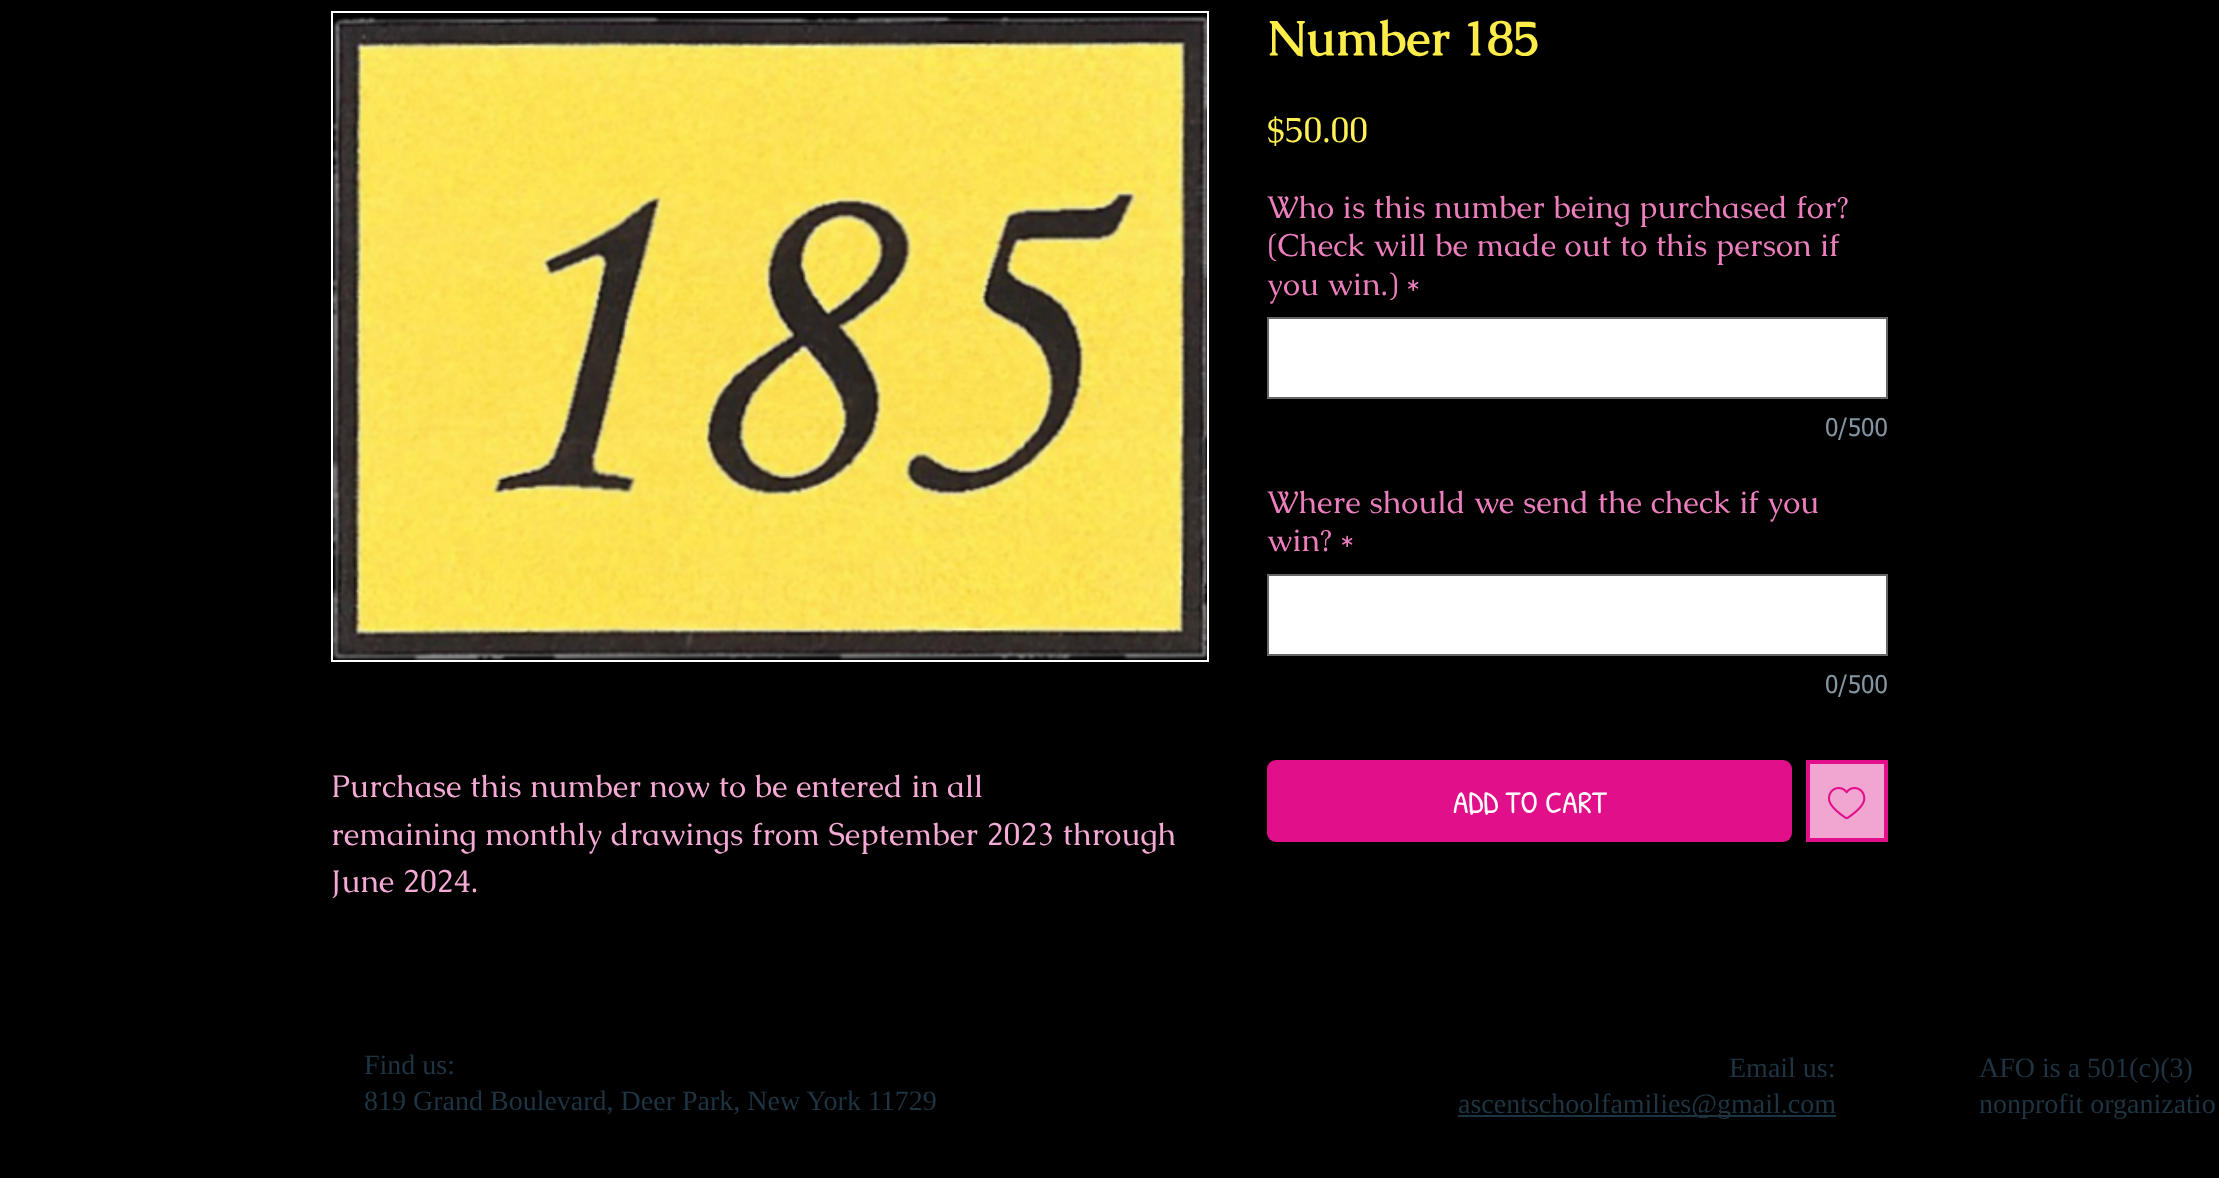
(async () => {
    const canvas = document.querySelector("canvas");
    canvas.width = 2219;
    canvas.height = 1178;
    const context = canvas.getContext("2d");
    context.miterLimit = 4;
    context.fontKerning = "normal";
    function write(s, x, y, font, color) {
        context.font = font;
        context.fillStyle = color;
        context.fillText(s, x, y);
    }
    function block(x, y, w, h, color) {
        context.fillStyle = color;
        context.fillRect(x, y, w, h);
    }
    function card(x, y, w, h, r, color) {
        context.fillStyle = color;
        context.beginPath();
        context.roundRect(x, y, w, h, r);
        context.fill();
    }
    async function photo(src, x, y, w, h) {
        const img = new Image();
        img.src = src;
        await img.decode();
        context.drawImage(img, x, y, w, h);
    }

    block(0, 0, 2219, 1178, "rgb(0, 0, 0)");
    write("Number 185", 1267, 55, "bold 49px Caudex", "rgb(251, 236, 73)");
    write("$50.00", 1267, 142, "35px Caudex", "rgb(255, 240, 86)");
    write("Who is this number being purchased for?", 1267, 218, "31.5px Caudex", "rgb(236, 126, 190)");
    write("(Check will be made out to this person if", 1267, 256, "31.5px Caudex", "rgb(236, 126, 190)");
    write("you win.)", 1267, 295, "31.5px Caudex", "rgb(236, 126, 190)");
    write("*", 1405, 295, "31.5px Caudex", "rgb(236, 126, 190)");
    context.fillStyle = "rgb(255, 255, 255)";
    context.beginPath();
    context.rect(1268, 318, 619, 80);
    context.fill();
    context.strokeStyle = "rgb(102, 102, 102)";
    context.lineWidth = 2;
    context.stroke();
    write("0/500", 1825, 436, "24.5px tahoma", "rgb(131, 148, 160)");
    write("Where should we send the check if you", 1267, 513, "31.5px Caudex", "rgb(236, 126, 190)");
    write("win?", 1267, 551, "31.5px Caudex", "rgb(236, 126, 190)");
    write("*", 1339, 551, "31.5px Caudex", "rgb(236, 126, 190)");
    context.fillStyle = "rgb(255, 255, 255)";
    context.beginPath();
    context.rect(1268, 575, 619, 80);
    context.fill();
    context.stroke();
    write("0/500", 1825, 693, "24.5px tahoma", "rgb(131, 148, 160)");
    card(1267, 760, 525, 82, 9, "rgb(226, 15, 139)");
    write("ADD TO CART", 1453, 813, "31.5px Patrick Hand", "rgb(255, 255, 255)");
    context.fillStyle = "rgb(240, 166, 209)";
    context.beginPath();
    context.rect(1808, 762, 78, 78);
    context.fill();
    context.strokeStyle = "rgb(226, 15, 139)";
    context.lineWidth = 4;
    context.stroke();
    await photo("media/1.png", 1828, 787, 38, 33);
    context.strokeStyle = "rgb(255, 255, 255)";
    context.lineWidth = 2;
    context.strokeRect(332, 12, 876, 649);
    await photo("media/2.png", 332, 16, 876, 644);
    write("Purchase this number now to be entered in all", 331, 797, "31.5px Caudex", "rgb(245, 169, 213)");
    write("remaining monthly drawings from September 2023 through", 331, 845, "31.5px Caudex", "rgb(245, 169, 213)");
    write("June 2024.", 331, 892, "31.5px Caudex", "rgb(245, 169, 213)");
    write("Find us:", 364, 1074, "28px Liberation Serif", "rgb(30, 52, 67)");
    write("819 Grand Boulevard, Deer Park, New York 11729", 364, 1110, "28px Liberation Serif", "rgb(30, 52, 67)");
    write("Email us:", 1729, 1077, "28px Liberation Serif", "rgb(30, 52, 67)");
    block(1458, 1115, 378, 2, "rgb(30, 52, 67)");
    write("ascentschoolfamilies@gmail.com", 1458, 1113, "28px Liberation Serif", "rgb(30, 52, 67)");
    write("AFO is a 501(c)(3)", 1979, 1077, "28px Liberation Serif", "rgb(30, 52, 67)");
    write("nonprofit organizatio", 1979, 1113, "28px Liberation Serif", "rgb(30, 52, 67)");
})();
